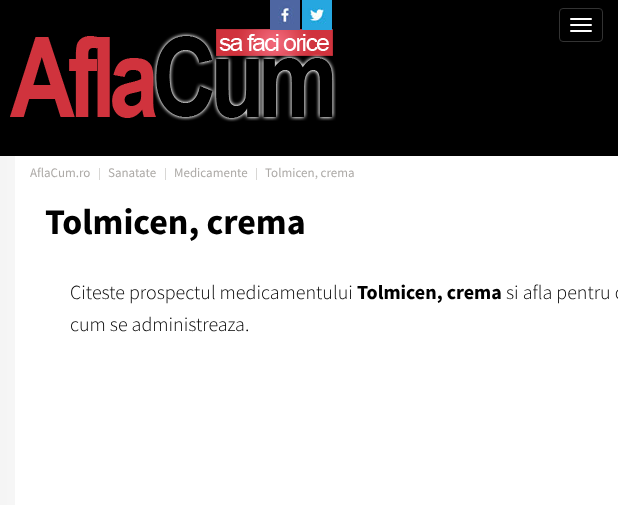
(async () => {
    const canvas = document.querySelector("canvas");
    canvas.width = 618;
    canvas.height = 505;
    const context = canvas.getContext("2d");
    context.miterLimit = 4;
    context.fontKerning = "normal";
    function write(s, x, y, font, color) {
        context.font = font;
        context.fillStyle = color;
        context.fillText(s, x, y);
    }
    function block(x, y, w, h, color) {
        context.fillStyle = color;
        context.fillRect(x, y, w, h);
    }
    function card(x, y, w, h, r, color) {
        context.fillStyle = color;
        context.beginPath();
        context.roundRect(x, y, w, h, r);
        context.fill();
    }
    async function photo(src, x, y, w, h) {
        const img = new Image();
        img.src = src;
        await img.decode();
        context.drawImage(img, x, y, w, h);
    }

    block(0, 0, 618, 505, "rgb(239, 239, 239)");
    await photo("media/1.png", 0, 156, 15, 349);
    block(0, 0, 618, 156, "rgb(0, 0, 0)");
    await photo("media/4.png", 10, 29, 326, 93);
    await photo("media/2.png", 270, 0, 30, 30);
    await photo("media/3.png", 302, 0, 30, 30);
    context.beginPath();
    context.roundRect(559.5, 8.5, 43, 33, 3.5);
    context.strokeStyle = "rgb(51, 51, 51)";
    context.stroke();
    card(570, 18, 22, 2, 1, "rgb(255, 255, 255)");
    card(570, 24, 22, 2, 1, "rgb(255, 255, 255)");
    card(570, 30, 22, 2, 1, "rgb(255, 255, 255)");
    block(15, 156, 603, 349, "rgb(255, 255, 255)");
    write("AflaCum.ro", 30, 177, "13px Source Sans Pro", "rgb(173, 170, 167)");
    write("|", 98, 177, "300 12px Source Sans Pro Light", "rgb(173, 170, 167)");
    write("Sanatate", 108, 177, "13px Source Sans Pro", "rgb(173, 170, 167)");
    write("|", 164, 177, "300 12px Source Sans Pro Light", "rgb(173, 170, 167)");
    write("Medicamente", 174, 177, "13px Source Sans Pro", "rgb(173, 170, 167)");
    write("|", 255, 177, "300 12px Source Sans Pro Light", "rgb(173, 170, 167)");
    write("Tolmicen, crema", 265, 177, "13px Source Sans Pro", "rgb(173, 170, 167)");
    write("Tolmicen, crema", 45, 234, "bold 36px Source Sans Pro", "rgb(0, 0, 0)");
    write("Citeste prospectul medicamentului", 70, 299, "300 20px Source Sans Pro Light", "rgb(0, 0, 0)");
    write("Tolmicen, crema", 357, 299, "bold 20px Source Sans Pro", "rgb(0, 0, 0)");
    write("si afla pentru c", 506, 299, "300 20px Source Sans Pro Light", "rgb(0, 0, 0)");
    write("cum se administreaza.", 70, 331, "300 20px Source Sans Pro Light", "rgb(0, 0, 0)");
})();
